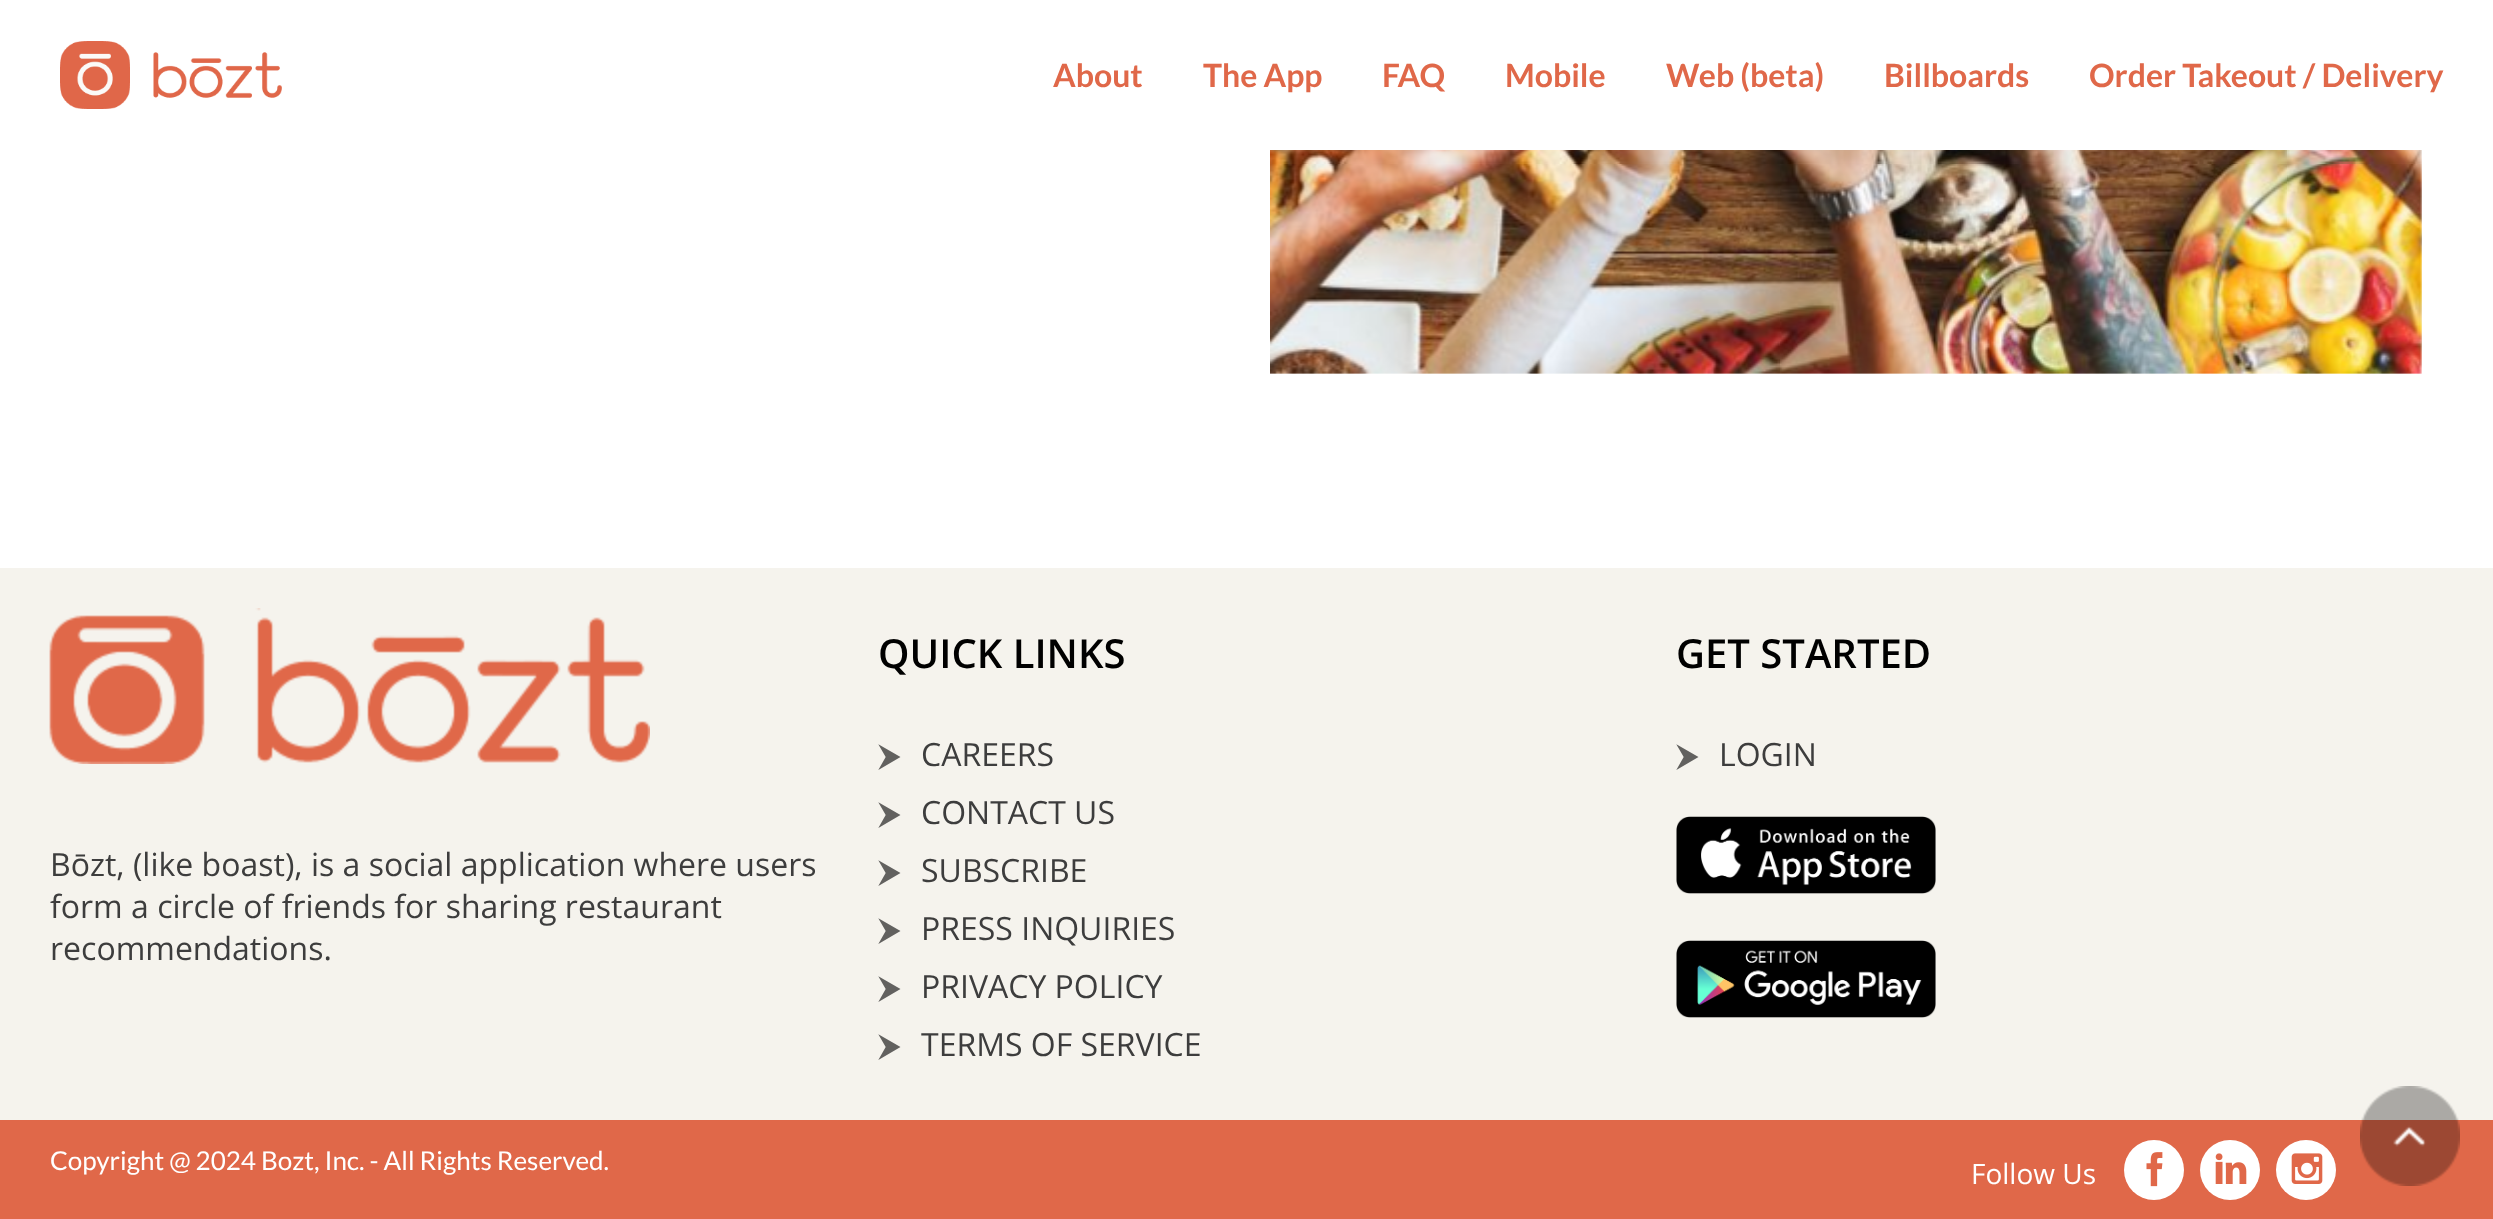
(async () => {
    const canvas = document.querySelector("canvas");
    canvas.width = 2493;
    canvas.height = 1219;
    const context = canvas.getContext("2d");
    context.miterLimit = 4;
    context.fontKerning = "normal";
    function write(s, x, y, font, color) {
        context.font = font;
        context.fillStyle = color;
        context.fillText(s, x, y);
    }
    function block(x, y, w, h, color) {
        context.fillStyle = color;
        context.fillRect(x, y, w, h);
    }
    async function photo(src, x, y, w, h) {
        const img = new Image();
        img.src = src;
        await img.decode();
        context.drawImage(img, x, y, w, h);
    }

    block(0, 0, 2493, 1219, "rgb(255, 255, 255)");
    await photo("media/1.png", 60, 41, 222, 68);
    write("About", 1053, 87, "bold 32px Lato", "rgb(224, 104, 73)");
    write("The App", 1203, 87, "bold 32px Lato", "rgb(224, 104, 73)");
    write("FAQ", 1382, 87, "bold 32px Lato", "rgb(224, 104, 73)");
    write("Mobile", 1505, 87, "bold 32px Lato", "rgb(224, 104, 73)");
    write("Web (beta)", 1666, 87, "bold 32px Lato", "rgb(224, 104, 73)");
    write("Billboards", 1884, 87, "bold 32px Lato", "rgb(224, 104, 73)");
    write("Order Takeout / Delivery", 2089, 87, "bold 32px Lato", "rgb(224, 104, 73)");
    await photo("media/2.png", 1270, 150, 1152, 224);
    block(0, 568, 2493, 552, "rgb(245, 243, 237)");
    write("QUICK LINKS", 878, 668, "600 40px Open Sans", "rgb(0, 0, 0)");
    write("⮞", 878, 766, "32px FreeSans", "rgb(98, 97, 95)");
    write("CAREERS", 921, 766, "32px Open Sans", "rgb(61, 61, 61)");
    write("⮞", 878, 824, "32px FreeSans", "rgb(98, 97, 95)");
    write("CONTACT US", 921, 824, "32px Open Sans", "rgb(61, 61, 61)");
    write("⮞", 878, 882, "32px FreeSans", "rgb(98, 97, 95)");
    write("SUBSCRIBE", 921, 882, "32px Open Sans", "rgb(61, 61, 61)");
    write("⮞", 878, 940, "32px FreeSans", "rgb(98, 97, 95)");
    write("PRESS INQUIRIES", 921, 940, "32px Open Sans", "rgb(61, 61, 61)");
    write("⮞", 878, 998, "32px FreeSans", "rgb(98, 97, 95)");
    write("PRIVACY POLICY", 921, 998, "32px Open Sans", "rgb(61, 61, 61)");
    write("⮞", 878, 1056, "32px FreeSans", "rgb(98, 97, 95)");
    write("TERMS OF SERVICE", 921, 1056, "32px Open Sans", "rgb(61, 61, 61)");
    write("GET STARTED", 1676, 668, "600 40px Open Sans", "rgb(0, 0, 0)");
    write("⮞", 1676, 766, "32px FreeSans", "rgb(98, 97, 95)");
    write("LOGIN", 1719, 766, "32px Open Sans", "rgb(61, 61, 61)");
    await photo("media/3.png", 1676, 816, 260, 78);
    await photo("media/4.png", 1676, 940, 260, 78);
    await photo("media/5.png", 49, 608, 601, 156);
    write("Bōzt, (like boast), is a social application where users", 50, 876, "32px Open Sans", "rgb(61, 61, 61)");
    write("form a circle of friends for sharing restaurant", 50, 918, "32px Open Sans", "rgb(61, 61, 61)");
    write("recommendations.", 50, 960, "32px Open Sans", "rgb(61, 61, 61)");
    block(0, 1120, 2493, 99, "rgb(224, 104, 73)");
    write("Copyright @ 2024 Bozt, Inc. - All Rights Reserved.", 50, 1170, "26px Lato", "rgb(255, 255, 255)");
    write("Follow Us", 1971, 1184, "28px Open Sans", "rgb(255, 255, 255)");
    context.beginPath();
    context.arc(2154, 1170, 30, 0, Math.PI * 2);
    context.fill();
    await photo("media/6.png", 2146, 1152, 17, 35);
    context.beginPath();
    context.arc(2230, 1170, 30, 0, Math.PI * 2);
    context.fill();
    await photo("media/7.png", 2215, 1153, 32, 31);
    context.beginPath();
    context.arc(2306, 1170, 30, 0, Math.PI * 2);
    context.fill();
    await photo("media/8.png", 2291, 1153, 32, 31);
    await photo("media/9.png", 2360, 1086, 100, 100);
})();
